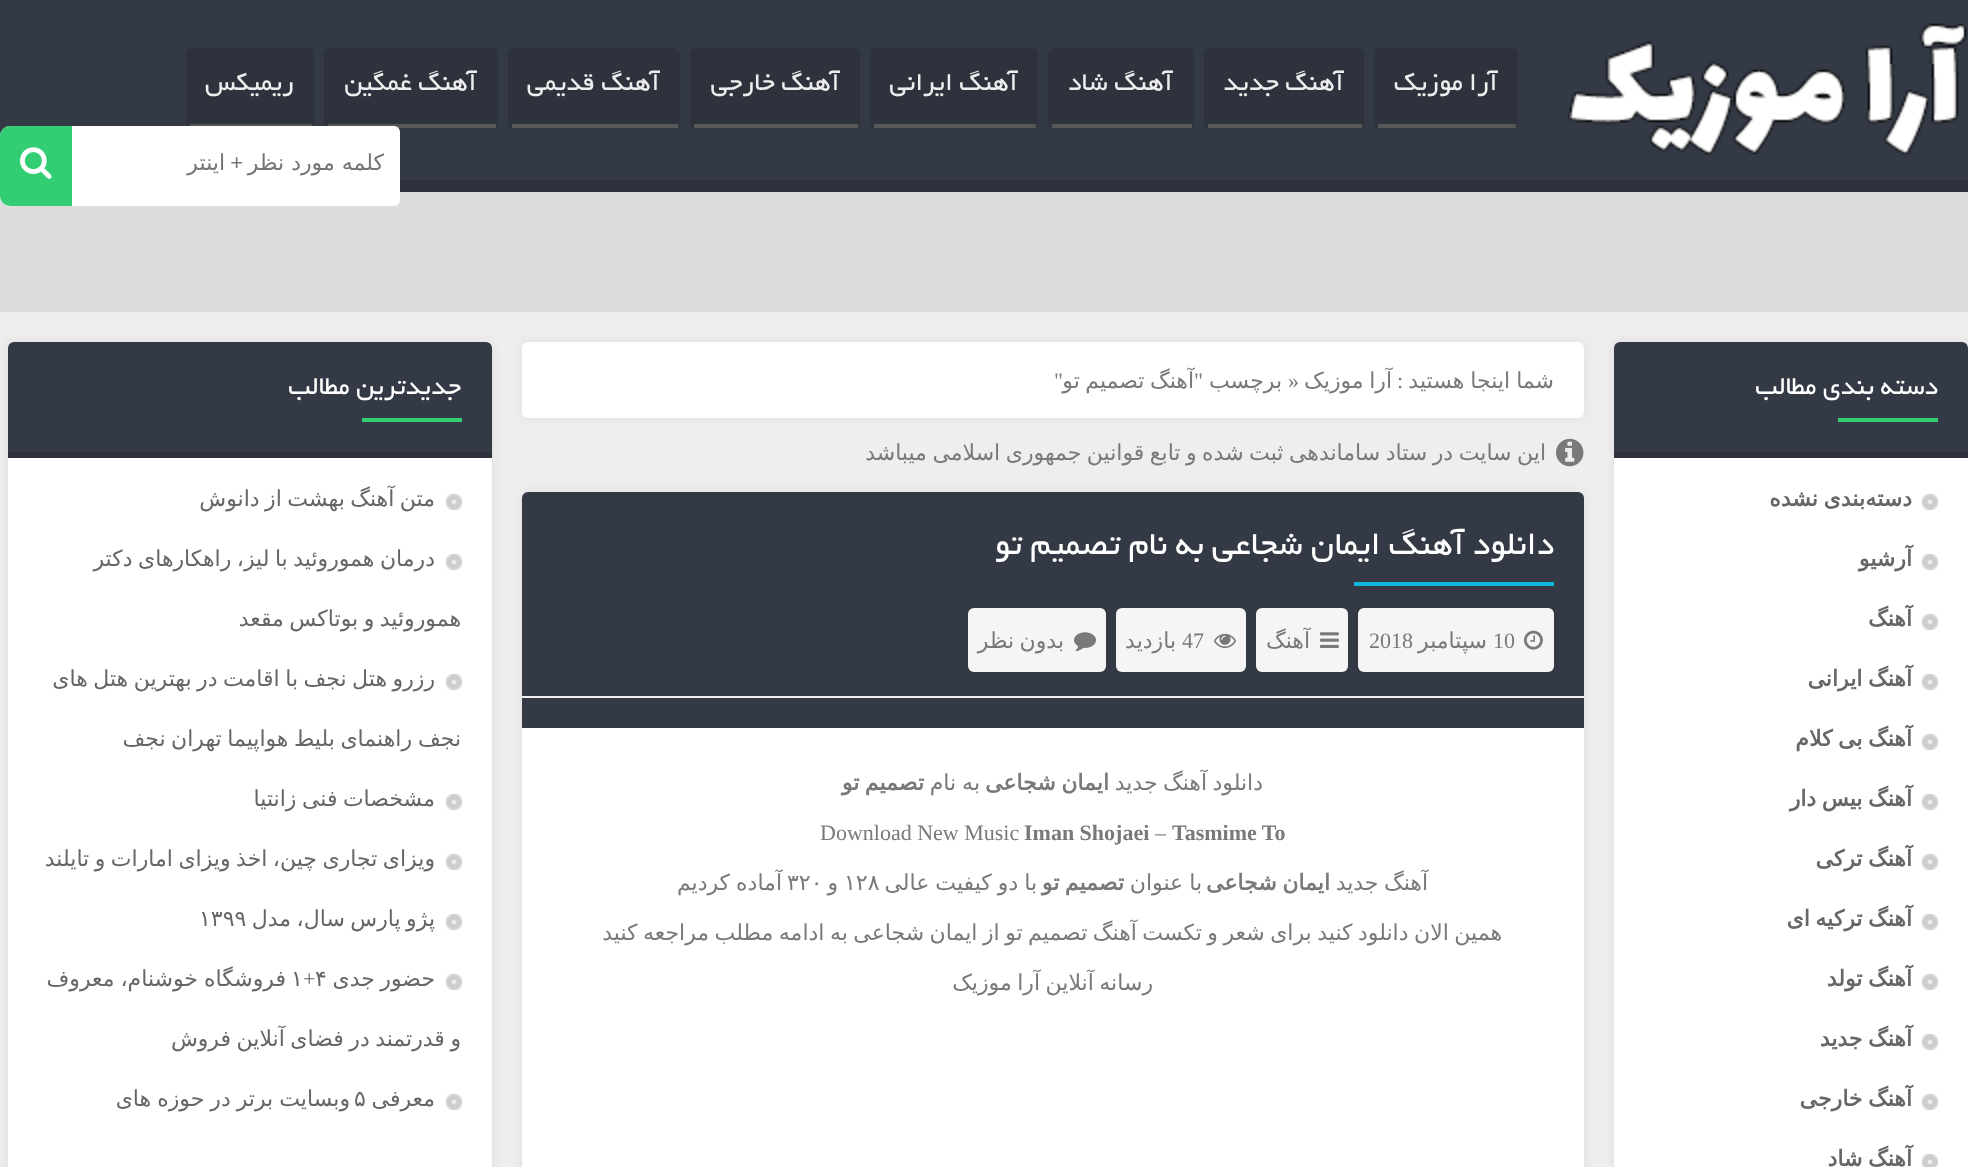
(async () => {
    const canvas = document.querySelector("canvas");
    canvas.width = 1968;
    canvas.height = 1167;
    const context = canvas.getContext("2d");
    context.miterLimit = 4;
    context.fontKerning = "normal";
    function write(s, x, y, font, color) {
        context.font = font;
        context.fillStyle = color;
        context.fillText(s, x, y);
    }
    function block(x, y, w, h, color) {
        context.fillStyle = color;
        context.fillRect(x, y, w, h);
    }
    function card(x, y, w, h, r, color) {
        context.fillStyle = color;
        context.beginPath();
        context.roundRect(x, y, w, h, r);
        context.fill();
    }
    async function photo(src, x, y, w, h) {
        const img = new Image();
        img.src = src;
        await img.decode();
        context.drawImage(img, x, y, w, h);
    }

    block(0, 0, 1968, 1167, "rgb(238, 238, 238)");
    block(0, 0, 1968, 180, "rgb(51, 57, 69)");
    block(400, 180, 1568, 12, "rgb(45, 50, 60)");
    await photo("media/1.png", 1568, 23, 399, 133);
    card(1374, 48, 144, 80, 6, "rgb(45, 50, 60)");
    block(1378, 124, 138, 4, "rgb(88, 87, 87)");
    context.direction = "rtl";
    write("آرا موزیک", 1498, 90, "28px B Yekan", "rgb(238, 238, 238)");
    card(1204, 48, 160, 80, 6, "rgb(45, 50, 60)");
    block(1208, 124, 154, 4, "rgb(88, 87, 87)");
    write("آهنگ جدید", 1344, 90, "28px B Yekan", "rgb(238, 238, 238)");
    card(1048, 48, 146, 80, 6, "rgb(45, 50, 60)");
    block(1052, 124, 140, 4, "rgb(88, 87, 87)");
    write("آهنگ شاد", 1173, 90, "28px B Yekan", "rgb(238, 238, 238)");
    card(870, 48, 168, 80, 6, "rgb(45, 50, 60)");
    block(874, 124, 162, 4, "rgb(88, 87, 87)");
    write("آهنگ ایرانی", 1018, 90, "28px B Yekan", "rgb(238, 238, 238)");
    card(690, 48, 170, 80, 6, "rgb(45, 50, 60)");
    block(694, 124, 164, 4, "rgb(88, 87, 87)");
    write("آهنگ خارجی", 840, 90, "28px B Yekan", "rgb(238, 238, 238)");
    card(508, 48, 172, 80, 6, "rgb(45, 50, 60)");
    block(512, 124, 166, 4, "rgb(88, 87, 87)");
    write("آهنگ قدیمی", 660, 90, "28px B Yekan", "rgb(238, 238, 238)");
    card(324, 48, 174, 80, 6, "rgb(45, 50, 60)");
    block(328, 124, 168, 4, "rgb(88, 87, 87)");
    write("آهنگ غمگین", 477, 90, "28px B Yekan", "rgb(238, 238, 238)");
    card(186, 48, 128, 80, 6, "rgb(45, 50, 60)");
    block(190, 124, 122, 2, "rgb(88, 87, 87)");
    write("ریمیکس", 294, 90, "28px B Yekan", "rgb(238, 238, 238)");
    block(0, 192, 1968, 120, "rgb(221, 221, 221)");
    context.fillStyle = "rgb(255, 255, 255)";
    context.beginPath();
    context.roundRect(0, 126, 400, 80, [10, 6, 6, 10]);
    context.fill();
    write("کلمه مورد نظر", 384, 170, "22px DejaVu Sans", "rgb(117, 117, 117)");
    write("+", 243, 170, "22px Liberation Sans", "rgb(117, 117, 117)");
    write("اینتر", 225, 170, "22px DejaVu Sans", "rgb(117, 117, 117)");
    context.fillStyle = "rgb(51, 206, 116)";
    context.beginPath();
    context.roundRect(0, 126, 72, 80, [10, 0, 0, 10]);
    context.fill();
    await photo("media/2.png", 20, 147, 32, 32);
    context.fillStyle = "rgb(221, 221, 221)";
    context.filter = "blur(5px)";
    context.beginPath();
    context.roundRect(1614, 342, 354, 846, 6);
    context.fill();
    context.filter = "none";
    card(1614, 342, 354, 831, 6, "rgb(255, 255, 255)");
    context.fillStyle = "rgb(51, 57, 69)";
    context.beginPath();
    context.roundRect(1614, 342, 354, 116, [6, 6, 0, 0]);
    context.fill();
    block(1614, 452, 354, 6, "rgb(45, 50, 60)");
    write("دسته بندی مطالب", 1938, 394, "28px B Yekan", "rgb(255, 255, 255)");
    block(1838, 418, 100, 4, "rgb(51, 206, 116)");
    await photo("media/3.png", 1922, 494, 16, 16);
    write("دسته", 1912, 506, "bold 22px DejaVu Sans", "rgb(102, 102, 102)");
    context.wordSpacing = "-1.5px";
    write("بندی نشده", 1865, 506, "bold 22px DejaVu Sans", "rgb(102, 102, 102)");
    await photo("media/3.png", 1922, 554, 16, 16);
    context.wordSpacing = "0px";
    write("آرشیو", 1912, 566, "bold 22px DejaVu Sans", "rgb(102, 102, 102)");
    await photo("media/3.png", 1922, 614, 16, 16);
    write("آهنگ", 1912, 626, "bold 22px DejaVu Sans", "rgb(102, 102, 102)");
    await photo("media/3.png", 1922, 674, 16, 16);
    context.wordSpacing = "-1.5px";
    write("آهنگ ایرانی", 1912, 686, "bold 22px DejaVu Sans", "rgb(102, 102, 102)");
    await photo("media/3.png", 1922, 734, 16, 16);
    write("آهنگ بی کلام", 1912, 746, "bold 22px DejaVu Sans", "rgb(102, 102, 102)");
    await photo("media/3.png", 1922, 794, 16, 16);
    write("آهنگ بیس دار", 1912, 806, "bold 22px DejaVu Sans", "rgb(102, 102, 102)");
    await photo("media/3.png", 1922, 854, 16, 16);
    write("آهنگ ترکی", 1912, 866, "bold 22px DejaVu Sans", "rgb(102, 102, 102)");
    await photo("media/3.png", 1922, 914, 16, 16);
    write("آهنگ ترکیه ای", 1912, 926, "bold 22px DejaVu Sans", "rgb(102, 102, 102)");
    await photo("media/3.png", 1922, 974, 16, 16);
    write("آهنگ تولد", 1912, 986, "bold 22px DejaVu Sans", "rgb(102, 102, 102)");
    await photo("media/3.png", 1922, 1034, 16, 16);
    write("آهنگ جدید", 1912, 1046, "bold 22px DejaVu Sans", "rgb(102, 102, 102)");
    await photo("media/3.png", 1922, 1094, 16, 16);
    write("آهنگ خارجی", 1912, 1106, "bold 22px DejaVu Sans", "rgb(102, 102, 102)");
    await photo("media/4.png", 1922, 1154, 16, 13);
    write("آهنگ شاد", 1912, 1166, "bold 22px DejaVu Sans", "rgb(102, 102, 102)");
    context.fillStyle = "rgb(221, 221, 221)";
    context.filter = "blur(5px)";
    context.beginPath();
    context.roundRect(522, 342, 1062, 76, 6);
    context.fill();
    context.filter = "none";
    card(522, 342, 1062, 76, 6, "rgb(255, 255, 255)");
    context.wordSpacing = "-1px";
    write("شما اینجا هستید", 1554, 388, "22px DejaVu Sans", "rgb(120, 121, 123)");
    context.wordSpacing = "-1.5px";
    write("آرا موزیک", 1392, 388, "22px DejaVu Sans", "rgb(120, 121, 123)");
    context.wordSpacing = "0px";
    write("\"", 1063, 388, "22px Liberation Serif", "rgb(120, 121, 123)");
    context.wordSpacing = "-1.5px";
    write("آهنگ تصمیم تو", 1194, 388, "22px DejaVu Sans", "rgb(120, 121, 123)");
    context.wordSpacing = "0px";
    write("\"", 1203, 388, "22px Liberation Serif", "rgb(120, 121, 123)");
    write(":", 1403, 388, "22px Liberation Serif", "rgb(120, 121, 123)");
    context.direction = "ltr";
    write("»", 1288, 388, "22px Liberation Serif", "rgb(120, 121, 123)");
    context.direction = "rtl";
    write("برچسب", 1282, 388, "22px DejaVu Sans", "rgb(120, 121, 123)");
    await photo("media/5.png", 1556, 438, 28, 29);
    context.wordSpacing = "-1.5px";
    write("این سایت در ستاد ساماندهی ثبت شده و تابع قوانین جمهوری اسلامی میباشد", 1546, 460, "22px DejaVu Sans", "rgb(120, 121, 123)");
    context.fillStyle = "rgb(221, 221, 221)";
    context.filter = "blur(5px)";
    context.beginPath();
    context.roundRect(522, 492, 1062, 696, 6);
    context.fill();
    context.filter = "none";
    card(522, 492, 1062, 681, 6, "rgb(255, 255, 255)");
    context.fillStyle = "rgb(51, 57, 69)";
    context.beginPath();
    context.roundRect(522, 492, 1062, 236, [6, 6, 0, 0]);
    context.fill();
    context.wordSpacing = "0px";
    write("دانلود آهنگ ایمان شجاعی به نام تصمیم تو", 1554, 554, "36px B Yekan", "rgb(255, 255, 255)");
    block(1354, 582, 200, 4, "rgb(16, 182, 219)");
    block(522, 696, 1062, 2, "rgb(238, 238, 238)");
    card(1358, 608, 196, 64, 6, "rgb(245, 245, 245)");
    await photo("media/6.png", 1524, 630, 19, 20);
    context.direction = "ltr";
    write("10", 1493, 648, "22px Liberation Serif", "rgb(120, 121, 123)");
    context.direction = "rtl";
    write("سپتامبر", 1487, 648, "22px DejaVu Sans", "rgb(120, 121, 123)");
    context.direction = "ltr";
    write("2018", 1369, 648, "22px Liberation Serif", "rgb(120, 121, 123)");
    card(1256, 608, 92, 64, 6, "rgb(245, 245, 245)");
    await photo("media/7.png", 1320, 632, 19, 16);
    context.direction = "rtl";
    write("آهنگ", 1310, 648, "22px DejaVu Sans", "rgb(120, 121, 123)");
    card(1116, 608, 130, 64, 6, "rgb(245, 245, 245)");
    await photo("media/8.png", 1214, 633, 22, 15);
    context.direction = "ltr";
    write("47", 1182, 648, "22px Liberation Serif", "rgb(120, 121, 123)");
    context.direction = "rtl";
    write("بازدید", 1176, 648, "22px DejaVu Sans", "rgb(120, 121, 123)");
    card(968, 608, 138, 64, 6, "rgb(245, 245, 245)");
    await photo("media/9.png", 1074, 632, 22, 20);
    context.wordSpacing = "-1.5px";
    write("بدون نظر", 1064, 648, "22px DejaVu Sans", "rgb(120, 121, 123)");
    write("دانلود آهنگ جدید", 1263, 790, "22px DejaVu Sans", "rgb(120, 121, 123)");
    write("ایمان شجاعی", 1109, 790, "bold 22px DejaVu Sans", "rgb(120, 121, 123)");
    context.wordSpacing = "-1px";
    write("به نام", 980, 790, "22px DejaVu Sans", "rgb(120, 121, 123)");
    context.wordSpacing = "-1.5px";
    write("تصمیم تو", 924, 790, "bold 22px DejaVu Sans", "rgb(120, 121, 123)");
    context.wordSpacing = "0px";
    context.direction = "ltr";
    write("Tasmime To", 1172, 840, "bold 22px Liberation Serif", "rgb(120, 121, 123)");
    write("–", 1155, 840, "22px Liberation Serif", "rgb(120, 121, 123)");
    write("Iman Shojaei", 1024, 840, "bold 22px Liberation Serif", "rgb(120, 121, 123)");
    write("Download New Music", 820, 840, "22px Liberation Serif", "rgb(120, 121, 123)");
    context.wordSpacing = "-1.5px";
    context.direction = "rtl";
    write("آهنگ جدید", 1428, 890, "22px DejaVu Sans", "rgb(120, 121, 123)");
    write("ایمان شجاعی", 1330, 890, "bold 22px DejaVu Sans", "rgb(120, 121, 123)");
    context.wordSpacing = "-1px";
    write("با عنوان", 1202, 890, "22px DejaVu Sans", "rgb(120, 121, 123)");
    context.wordSpacing = "-1.5px";
    write("تصمیم تو", 1124, 890, "bold 22px DejaVu Sans", "rgb(120, 121, 123)");
    context.wordSpacing = "-1px";
    write("با دو کیفیت عالی", 1037, 890, "22px DejaVu Sans", "rgb(120, 121, 123)");
    context.wordSpacing = "0px";
    context.direction = "ltr";
    write("۱۲۸", 844, 890, "22px DejaVu Sans", "rgb(120, 121, 123)");
    context.direction = "rtl";
    write("و", 838, 890, "22px DejaVu Sans", "rgb(120, 121, 123)");
    context.direction = "ltr";
    write("۳۲۰", 787, 890, "22px DejaVu Sans", "rgb(120, 121, 123)");
    context.wordSpacing = "-1px";
    context.direction = "rtl";
    write("آماده کردیم", 782, 890, "22px DejaVu Sans", "rgb(120, 121, 123)");
    context.wordSpacing = "-1.5px";
    write("همین الان دانلود کنید برای شعر و تکست آهنگ تصمیم تو از ایمان شجاعی به ادامه مطلب مراجعه کنید", 1502, 940, "22px DejaVu Sans", "rgb(120, 121, 123)");
    write("رسانه آنلاین آرا موزیک", 1153, 990, "22px DejaVu Sans", "rgb(120, 121, 123)");
    context.fillStyle = "rgb(221, 221, 221)";
    context.filter = "blur(5px)";
    context.beginPath();
    context.roundRect(8, 342, 484, 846, 6);
    context.fill();
    context.filter = "none";
    card(8, 342, 484, 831, 6, "rgb(255, 255, 255)");
    context.fillStyle = "rgb(51, 57, 69)";
    context.beginPath();
    context.roundRect(8, 342, 484, 116, [6, 6, 0, 0]);
    context.fill();
    block(8, 452, 484, 6, "rgb(45, 50, 60)");
    context.wordSpacing = "0px";
    write("جدیدترین مطالب", 461, 394, "28px B Yekan", "rgb(255, 255, 255)");
    block(362, 418, 100, 4, "rgb(51, 206, 116)");
    await photo("media/3.png", 446, 494, 16, 16);
    context.wordSpacing = "-1.5px";
    write("متن آهنگ بهشت از دانوش", 435, 506, "22px DejaVu Sans", "rgb(102, 102, 102)");
    await photo("media/3.png", 446, 554, 16, 16);
    write("درمان هموروئید با لیز، راهکارهای دکتر", 435, 566, "22px DejaVu Sans", "rgb(102, 102, 102)");
    write("هموروئید و بوتاکس مقعد", 461, 626, "22px DejaVu Sans", "rgb(102, 102, 102)");
    await photo("media/3.png", 446, 674, 16, 16);
    write("رزرو هتل نجف با اقامت در بهترین هتل های", 435, 686, "22px DejaVu Sans", "rgb(102, 102, 102)");
    context.wordSpacing = "0px";
    write("نجف", 461, 746, "22px DejaVu Sans", "rgb(102, 102, 102)");
    context.wordSpacing = "-1.5px";
    write("راهنمای بلیط هواپیما تهران نجف", 412, 746, "22px DejaVu Sans", "rgb(102, 102, 102)");
    await photo("media/3.png", 446, 794, 16, 16);
    write("مشخصات فنی زانتیا", 435, 806, "22px DejaVu Sans", "rgb(102, 102, 102)");
    await photo("media/3.png", 446, 854, 16, 16);
    write("ویزای تجاری چین، اخذ ویزای امارات و تایلند", 435, 866, "22px DejaVu Sans", "rgb(102, 102, 102)");
    await photo("media/3.png", 446, 914, 16, 16);
    write("پژو پارس سال، مدل", 435, 926, "22px DejaVu Sans", "rgb(102, 102, 102)");
    context.wordSpacing = "0px";
    context.direction = "ltr";
    write("۱۳۹۹", 199, 926, "22px DejaVu Sans", "rgb(102, 102, 102)");
    await photo("media/3.png", 446, 974, 16, 16);
    context.wordSpacing = "-1.5px";
    context.direction = "rtl";
    write("حضور جدی", 435, 986, "22px DejaVu Sans", "rgb(102, 102, 102)");
    context.wordSpacing = "0px";
    context.direction = "ltr";
    write("۴", 315, 986, "22px DejaVu Sans", "rgb(102, 102, 102)");
    write("+", 303, 986, "22px Liberation Serif", "rgb(102, 102, 102)");
    write("۱", 291, 986, "22px DejaVu Sans", "rgb(102, 102, 102)");
    context.wordSpacing = "-1px";
    context.direction = "rtl";
    write("فروشگاه خوشنام، معروف", 286, 986, "22px DejaVu Sans", "rgb(102, 102, 102)");
    context.wordSpacing = "-1.5px";
    write("و قدرتمند در فضای آنلاین فروش", 461, 1046, "22px DejaVu Sans", "rgb(102, 102, 102)");
    await photo("media/3.png", 446, 1094, 16, 16);
    context.wordSpacing = "0px";
    write("معرفی", 435, 1106, "22px DejaVu Sans", "rgb(102, 102, 102)");
    context.direction = "ltr";
    write("۵", 354, 1106, "22px DejaVu Sans", "rgb(102, 102, 102)");
    context.wordSpacing = "-1px";
    context.direction = "rtl";
    write("وبسایت برتر در حوزه های", 350, 1106, "22px DejaVu Sans", "rgb(102, 102, 102)");
})();
